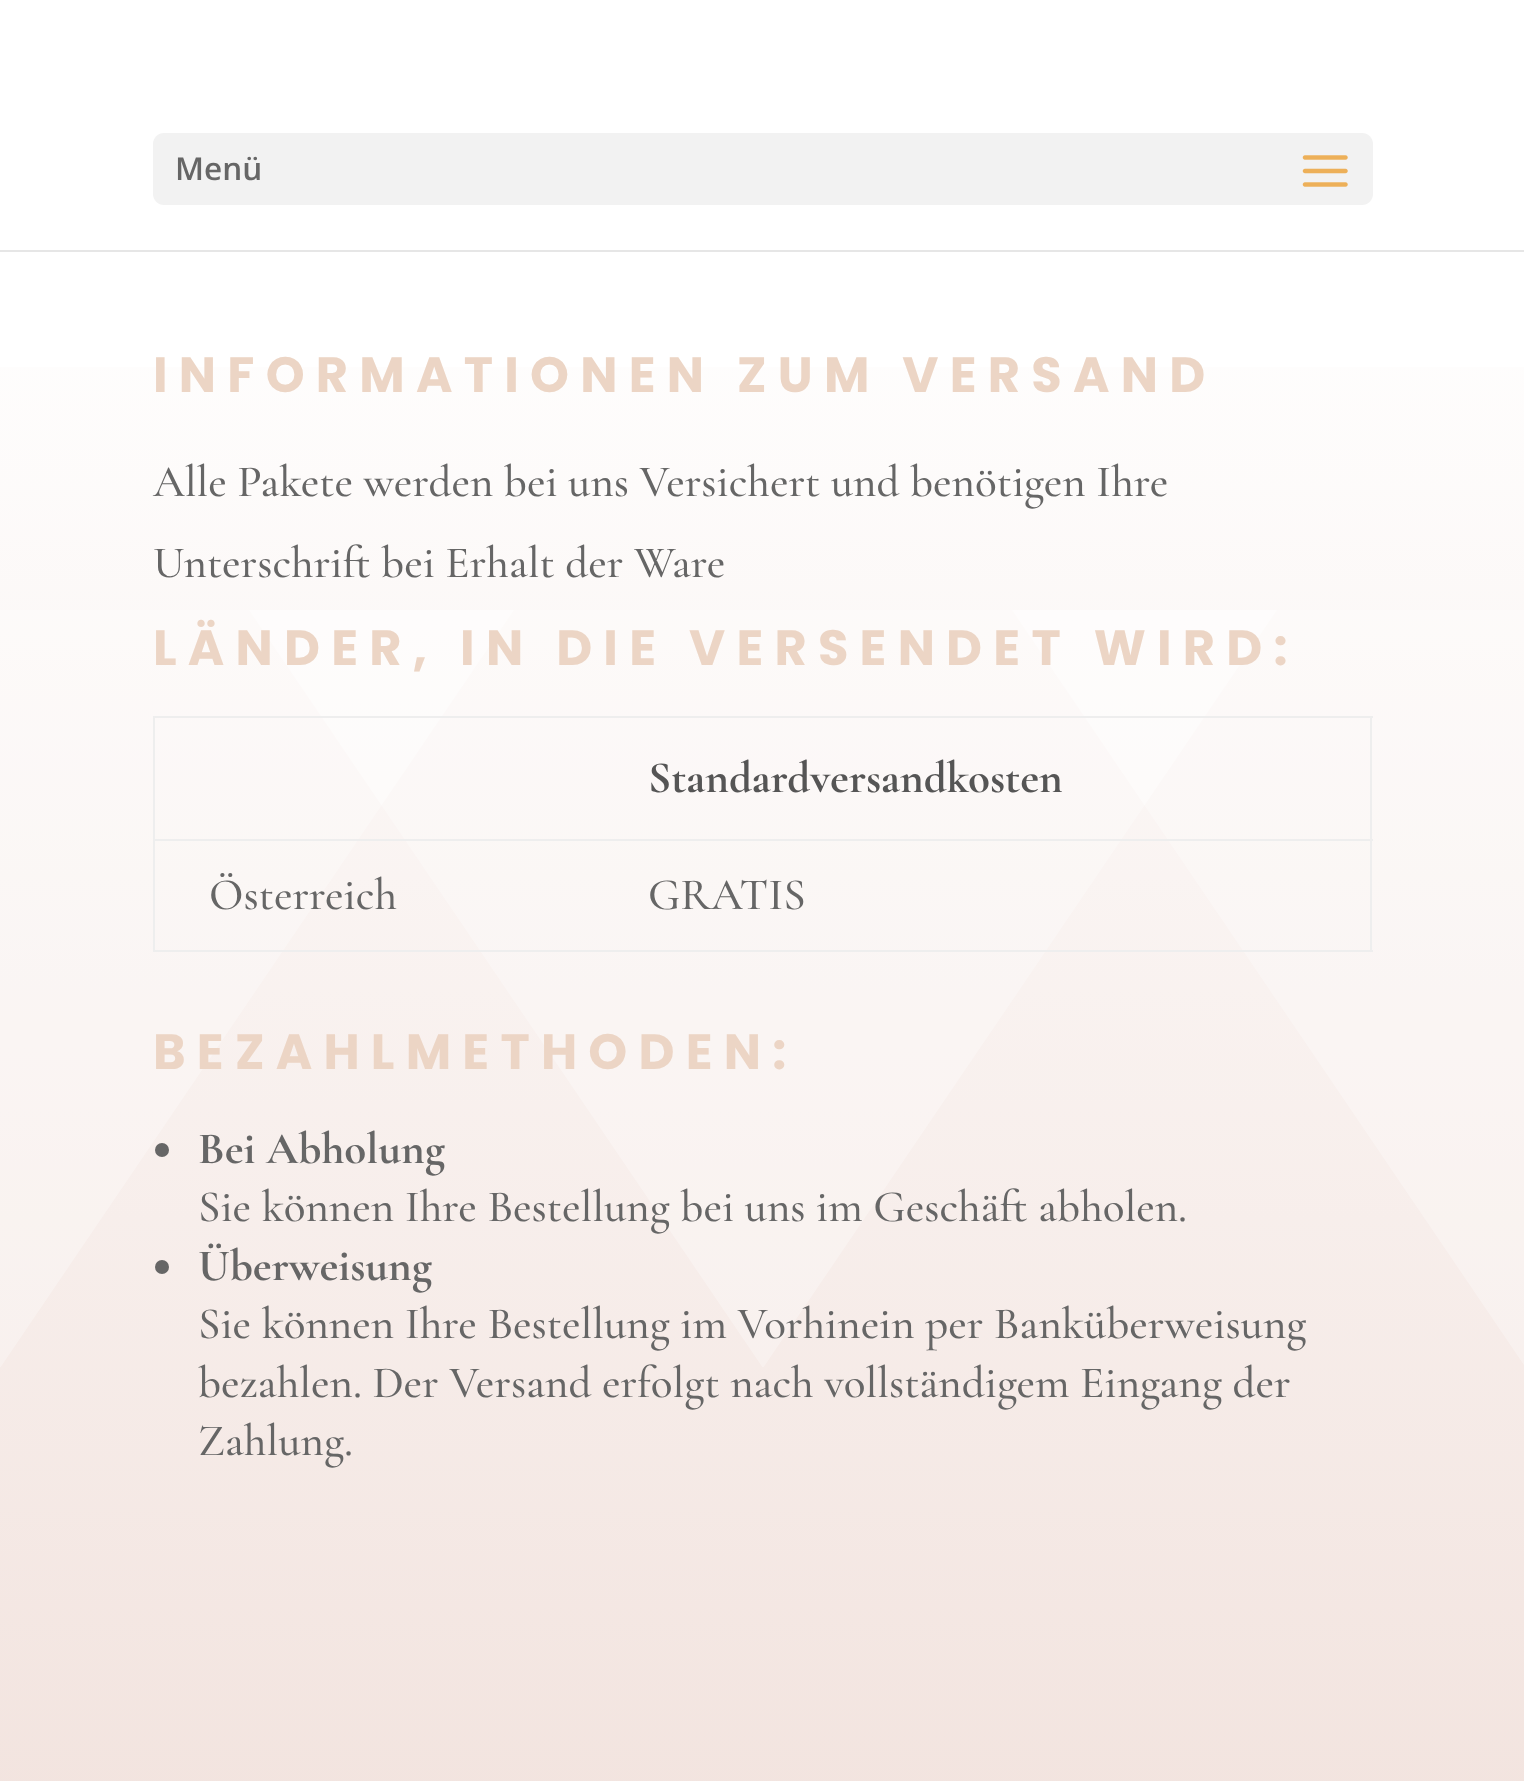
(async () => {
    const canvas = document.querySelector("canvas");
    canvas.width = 1524;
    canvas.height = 1781;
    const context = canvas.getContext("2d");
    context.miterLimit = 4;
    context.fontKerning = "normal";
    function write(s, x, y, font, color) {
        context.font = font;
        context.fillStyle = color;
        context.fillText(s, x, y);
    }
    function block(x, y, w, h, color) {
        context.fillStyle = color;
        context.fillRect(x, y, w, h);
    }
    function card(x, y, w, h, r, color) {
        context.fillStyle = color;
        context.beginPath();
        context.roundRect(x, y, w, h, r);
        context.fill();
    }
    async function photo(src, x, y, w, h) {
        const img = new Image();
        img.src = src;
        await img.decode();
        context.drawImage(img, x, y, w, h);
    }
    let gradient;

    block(0, 0, 1524, 1781, "rgb(255, 255, 255)");
    context.fillStyle = "rgb(230, 230, 230)";
    context.beginPath();
    context.moveTo(0, 250);
    context.lineTo(0, 252);
    context.lineTo(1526, 252);
    context.lineTo(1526, -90);
    context.lineTo(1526, 250);
    context.closePath();
    context.fill();
    card(153, 133, 1220, 72, 11, "rgb(242, 242, 242)");
    write("Menü", 175, 180, "600 31.5px Open Sans", "rgb(102, 102, 102)");
    await photo("media/1.png", 1302, 155, 46, 32);
    gradient = context.createLinearGradient(763, 245, 763, 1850);
    gradient.addColorStop(0, "rgb(255, 255, 255)");
    gradient.addColorStop(1, "rgb(242, 227, 222)");
    context.fillStyle = gradient;
    context.fillRect(0, 367, 1524, 1414);
    context.letterSpacing = "11.25px";
    write("INFORMATIONEN ZUM VERSAND", 153, 392, "bold 49.5px Poppins", "rgb(236, 213, 197)");
    context.letterSpacing = "0px";
    write("Alle Pakete werden bei uns Versichert und benötigen Ihre", 153, 496, "500 45px Cormorant Garamond", "rgb(102, 102, 102)");
    write("Unterschrift bei Erhalt der Ware", 153, 577, "500 45px Cormorant Garamond", "rgb(102, 102, 102)");
    await photo("media/2.png", 0, 610, 1524, 757);
    context.letterSpacing = "11.25px";
    write("LÄNDER, IN DIE VERSENDET WIRD:", 153, 665, "bold 49.5px Poppins", "rgb(236, 213, 197)");
    block(153, 716, 1220, 2, "rgb(238, 238, 238)");
    block(1370, 716, 2, 236, "rgb(238, 238, 238)");
    block(153, 950, 1220, 2, "rgb(238, 238, 238)");
    block(153, 716, 2, 236, "rgb(238, 238, 238)");
    context.letterSpacing = "0px";
    write("Standardversandkosten", 648, 792, "bold 45px Cormorant Garamond", "rgb(85, 85, 85)");
    write("Österreich", 209, 909, "500 45px Cormorant Garamond", "rgb(102, 102, 102)");
    block(153, 839, 1220, 2, "rgb(238, 238, 238)");
    write("GRATIS", 648, 909, "500 45px Cormorant Garamond", "rgb(102, 102, 102)");
    context.letterSpacing = "11.25px";
    write("BEZAHLMETHODEN:", 153, 1069, "bold 49.5px Poppins", "rgb(236, 213, 197)");
    context.fillStyle = "rgb(102, 102, 102)";
    context.beginPath();
    context.arc(162, 1150, 7, 0, Math.PI * 2);
    context.fill();
    context.letterSpacing = "0px";
    write("Bei Abholung", 198, 1163, "bold 45px Cormorant Garamond", "rgb(102, 102, 102)");
    write("Sie können Ihre Bestellung bei uns im Geschäft abholen.", 198, 1221, "500 45px Cormorant Garamond", "rgb(102, 102, 102)");
    context.beginPath();
    context.arc(162, 1267, 7, 0, Math.PI * 2);
    context.fill();
    write("Überweisung", 198, 1280, "bold 45px Cormorant Garamond", "rgb(102, 102, 102)");
    write("Sie können Ihre Bestellung im Vorhinein per Banküberweisung", 198, 1338, "500 45px Cormorant Garamond", "rgb(102, 102, 102)");
    write("bezahlen. Der Versand erfolgt nach vollständigem Eingang der", 198, 1397, "500 45px Cormorant Garamond", "rgb(102, 102, 102)");
    write("Zahlung.", 198, 1455, "500 45px Cormorant Garamond", "rgb(102, 102, 102)");
})();
